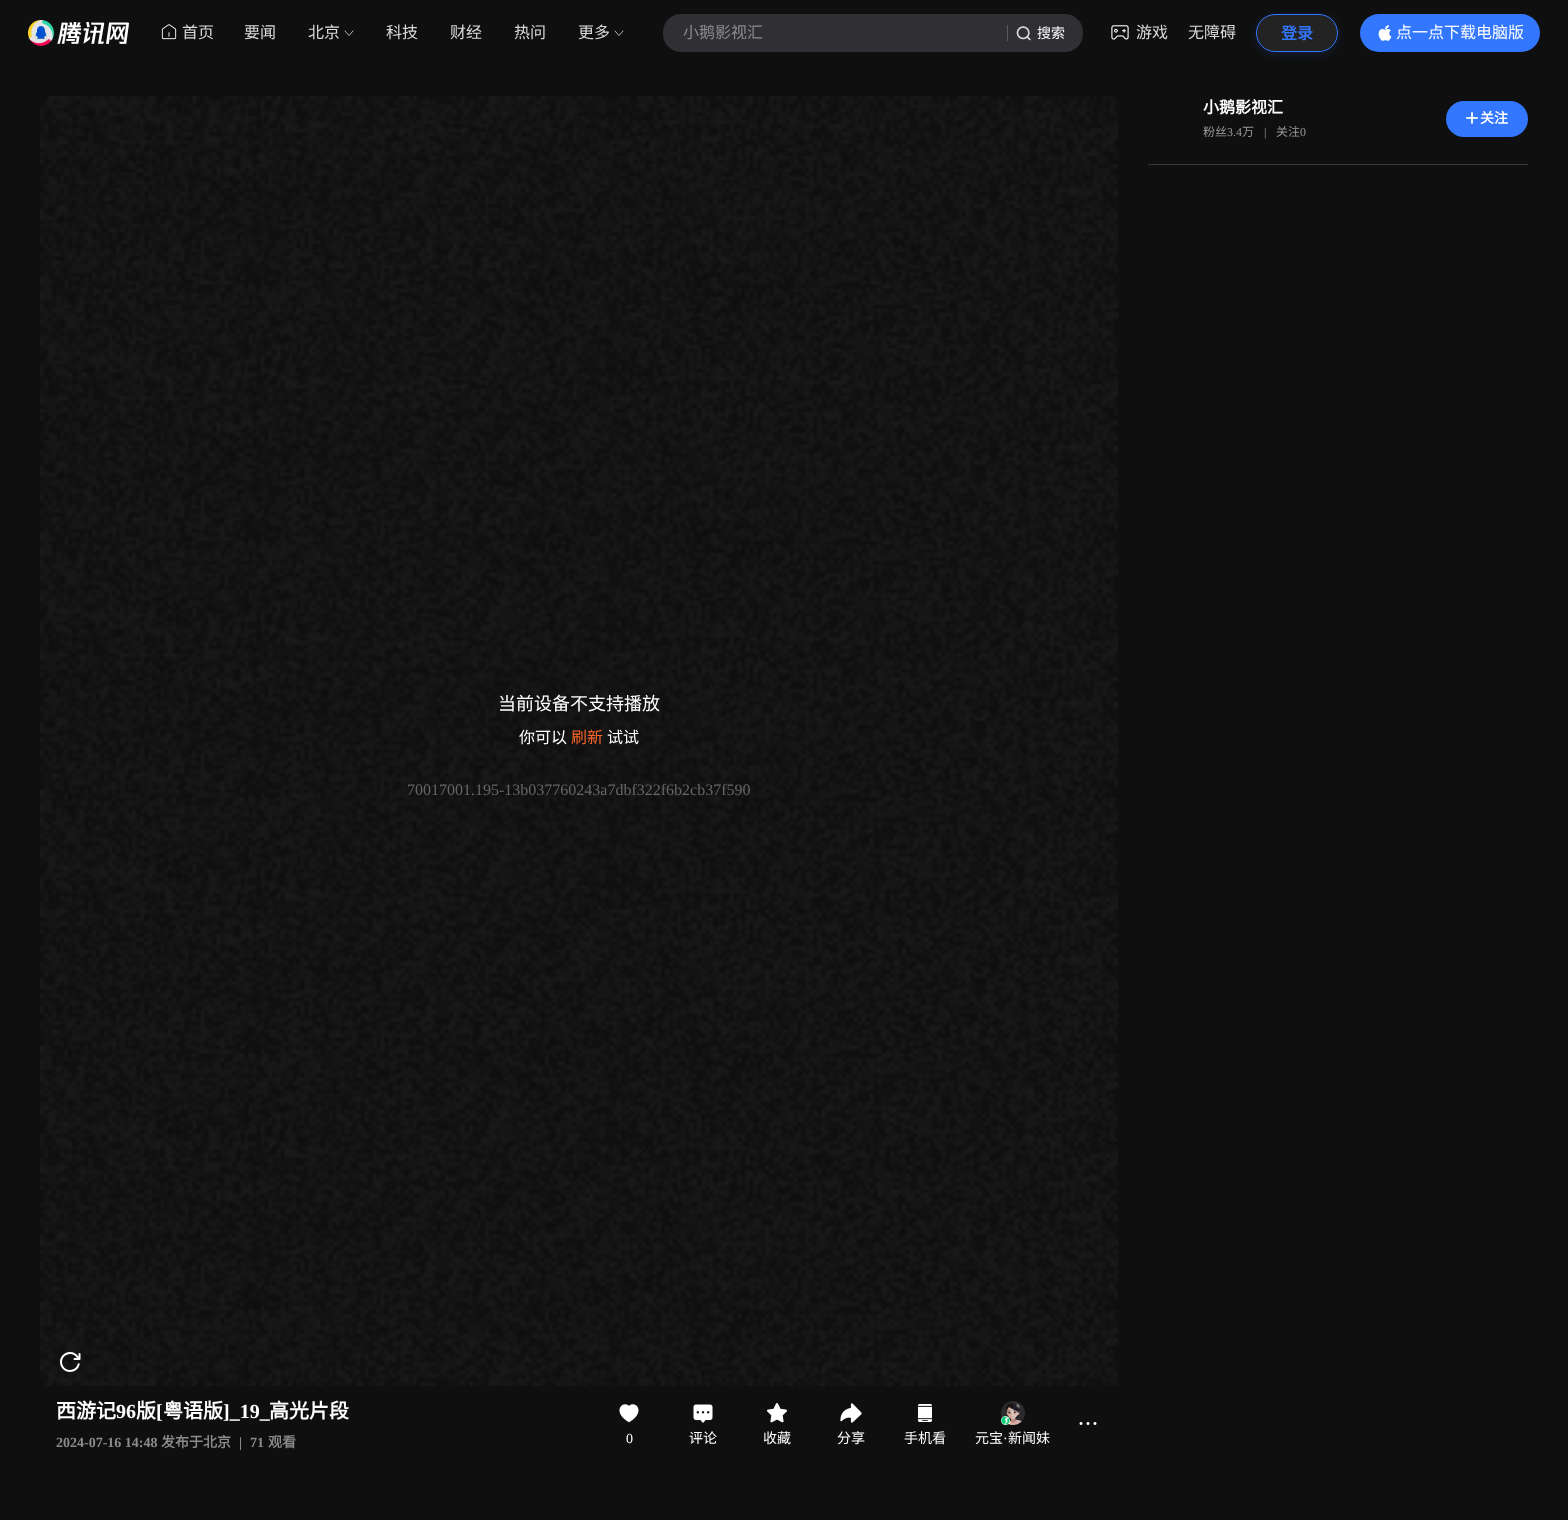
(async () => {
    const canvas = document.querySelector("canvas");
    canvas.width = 1568;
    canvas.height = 1520;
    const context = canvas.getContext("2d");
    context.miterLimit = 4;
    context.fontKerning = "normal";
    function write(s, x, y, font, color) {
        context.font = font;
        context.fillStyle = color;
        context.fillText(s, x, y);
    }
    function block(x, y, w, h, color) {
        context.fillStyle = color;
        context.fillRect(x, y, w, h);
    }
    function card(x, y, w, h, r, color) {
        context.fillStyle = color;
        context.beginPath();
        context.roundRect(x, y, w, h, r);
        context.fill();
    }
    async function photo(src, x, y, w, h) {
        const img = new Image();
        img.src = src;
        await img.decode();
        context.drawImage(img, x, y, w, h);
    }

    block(0, 0, 1568, 1520, "rgb(15, 15, 15)");
    await photo("media/1.png", 28, 20, 101, 26);
    await photo("media/2.png", 161, 24, 16, 16);
    write("首页", 182, 38, "16px Noto Sans CJK SC", "rgb(217, 217, 217)");
    write("要闻", 244, 38, "16px Noto Sans CJK SC", "rgb(217, 217, 217)");
    write("北京", 308, 38, "16px Noto Sans CJK SC", "rgb(217, 217, 217)");
    context.beginPath();
    context.moveTo(353, 31);
    context.lineTo(349, 35.5);
    context.lineTo(345, 31);
    context.strokeStyle = "rgb(255, 255, 255)";
    context.lineWidth = 0.7;
    context.lineCap = "round";
    context.lineJoin = "round";
    context.stroke();
    write("科技", 386, 38, "16px Noto Sans CJK SC", "rgb(217, 217, 217)");
    write("财经", 450, 38, "16px Noto Sans CJK SC", "rgb(217, 217, 217)");
    write("热问", 514, 38, "16px Noto Sans CJK SC", "rgb(217, 217, 217)");
    write("更多", 578, 38, "16px Noto Sans CJK SC", "rgb(217, 217, 217)");
    context.beginPath();
    context.moveTo(623, 31);
    context.lineTo(619, 35.5);
    context.lineTo(615, 31);
    context.stroke();
    card(663, 14, 420, 38, 18, "rgb(47, 47, 52)");
    write("小鹅影视汇", 683, 38, "16px Noto Sans CJK SC", "rgb(139, 139, 139)");
    block(1007, 25, 1, 16, "rgb(89, 89, 93)");
    await photo("media/3.png", 1016, 26, 15, 15);
    write("搜索", 1037, 38, "14px Noto Sans CJK SC", "rgb(255, 255, 255)");
    await photo("media/4.png", 1111, 25, 18, 15);
    write("游戏", 1136, 38, "16px Noto Sans CJK SC", "rgb(217, 217, 217)");
    write("无障碍", 1188, 38, "16px Noto Sans CJK SC", "rgb(217, 217, 217)");
    context.save();
    context.beginPath();
    context.moveTo(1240, 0);
    context.lineTo(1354, 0);
    context.lineTo(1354, 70);
    context.lineTo(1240, 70);
    context.closePath();
    context.moveTo(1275, 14);
    context.lineTo(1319, 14);
    context.bezierCurveTo(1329.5, 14, 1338, 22.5, 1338, 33);
    context.bezierCurveTo(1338, 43.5, 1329.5, 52, 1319, 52);
    context.lineTo(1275, 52);
    context.bezierCurveTo(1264.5, 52, 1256, 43.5, 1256, 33);
    context.bezierCurveTo(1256, 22.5, 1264.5, 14, 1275, 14);
    context.closePath();
    context.clip("evenodd");
    context.fillStyle = "rgba(51, 119, 255, 0.16)";
    context.filter = "blur(5px)";
    context.beginPath();
    context.roundRect(1256, 16, 82, 38, 19);
    context.fill();
    context.filter = "none";
    context.restore();
    context.fillStyle = "rgba(217, 217, 217, 0.1)";
    context.beginPath();
    context.roundRect(1256.5, 14.5, 81, 37, 18.5);
    context.fill();
    context.strokeStyle = "rgb(51, 119, 255)";
    context.lineWidth = 1;
    context.lineJoin = "miter";
    context.stroke();
    write("登录", 1281, 39, "bold 16px Noto Sans CJK SC", "rgb(51, 119, 255)");
    card(1360, 14, 180, 38, 19, "rgb(51, 119, 255)");
    await photo("media/5.png", 1378, 25, 14, 16);
    write("点一点下载电脑版", 1396, 38, "16px Noto Sans CJK SC", "rgb(255, 255, 255)");
    write("小鹅影视汇", 1203, 113, "bold 16px Noto Sans CJK SC", "rgb(255, 255, 255)");
    write("粉丝", 1203, 136, "12px Noto Sans CJK SC", "rgb(153, 153, 153)");
    write("3.4", 1227, 136, "12px Liberation Serif", "rgb(153, 153, 153)");
    write("万", 1242, 136, "12px Noto Sans CJK SC", "rgb(153, 153, 153)");
    write("|", 1264, 136, "12px Liberation Serif", "rgb(153, 153, 153)");
    write("关注", 1276, 136, "12px Noto Sans CJK SC", "rgb(153, 153, 153)");
    write("0", 1300, 136, "12px Liberation Serif", "rgb(153, 153, 153)");
    card(1446, 101, 82, 36, 18, "rgb(51, 119, 255)");
    await photo("media/6.png", 1466, 112, 12, 12);
    write("关注", 1480, 123, "bold 14px Noto Sans CJK SC", "rgb(255, 255, 255)");
    block(1148, 164, 380, 1, "rgb(56, 56, 56)");
    await photo("media/7.png", 40, 96, 1078, 1290);
    write("当前设备不支持播放", 498, 710, "18px Noto Sans CJK SC", "rgb(255, 255, 255)");
    write("你可以", 519, 743, "16px Noto Sans CJK SC", "rgb(255, 255, 255)");
    write("刷新", 571, 743, "16px Noto Sans CJK SC", "rgb(252, 101, 38)");
    write("试试", 607, 743, "16px Noto Sans CJK SC", "rgb(255, 255, 255)");
    write("70017001.195-13b037760243a7dbf322f6b2cb37f590", 407, 795, "16px Liberation Serif", "rgb(102, 102, 102)");
    write("西游记", 56, 1418, "bold 20px Noto Sans CJK SC", "rgb(255, 255, 255)");
    write("96", 116, 1418, "bold 20px Liberation Serif", "rgb(255, 255, 255)");
    write("版", 136, 1418, "bold 20px Noto Sans CJK SC", "rgb(255, 255, 255)");
    write("[", 156, 1418, "bold 20px Liberation Serif", "rgb(255, 255, 255)");
    write("粤语版", 163, 1418, "bold 20px Noto Sans CJK SC", "rgb(255, 255, 255)");
    write("]_19_", 223, 1418, "bold 20px Liberation Serif", "rgb(255, 255, 255)");
    write("高光片段", 269, 1418, "bold 20px Noto Sans CJK SC", "rgb(255, 255, 255)");
    write("2024-07-16 14:48", 56, 1447, "bold 14px Liberation Serif", "rgb(139, 139, 139)");
    write("发布于北京", 161, 1447, "bold 14px Noto Sans CJK SC", "rgb(139, 139, 139)");
    write("|", 239, 1447, "bold 14px Liberation Serif", "rgb(139, 139, 139)");
    write("71", 250, 1447, "bold 14px Liberation Serif", "rgb(139, 139, 139)");
    write("观看", 268, 1447, "bold 14px Noto Sans CJK SC", "rgb(139, 139, 139)");
    await photo("media/8.png", 1079, 1422, 18, 3);
    await photo("media/9.png", 619, 1404, 20, 19);
    write("0", 626, 1443, "14px Liberation Serif", "rgb(255, 255, 255)");
    await photo("media/10.png", 693, 1404, 20, 19);
    write("评论", 689, 1443, "14px Noto Sans CJK SC", "rgb(255, 255, 255)");
    await photo("media/11.png", 767, 1403, 20, 20);
    write("收藏", 763, 1443, "14px Noto Sans CJK SC", "rgb(255, 255, 255)");
    await photo("media/12.png", 840, 1403, 22, 20);
    write("分享", 837, 1443, "14px Noto Sans CJK SC", "rgb(255, 255, 255)");
    await photo("media/13.png", 918, 1404, 14, 18);
    write("手机看", 904, 1443, "14px Noto Sans CJK SC", "rgb(255, 255, 255)");
    await photo("media/14.png", 1001, 1401, 24, 24);
    await photo("media/15.png", 1001, 1416, 9, 9);
    write("元宝", 975, 1443, "14px Noto Sans CJK SC", "rgb(255, 255, 255)");
    write("·", 1003, 1443, "14px Liberation Serif", "rgb(255, 255, 255)");
    write("新闻妹", 1008, 1443, "14px Noto Sans CJK SC", "rgb(255, 255, 255)");
})();
